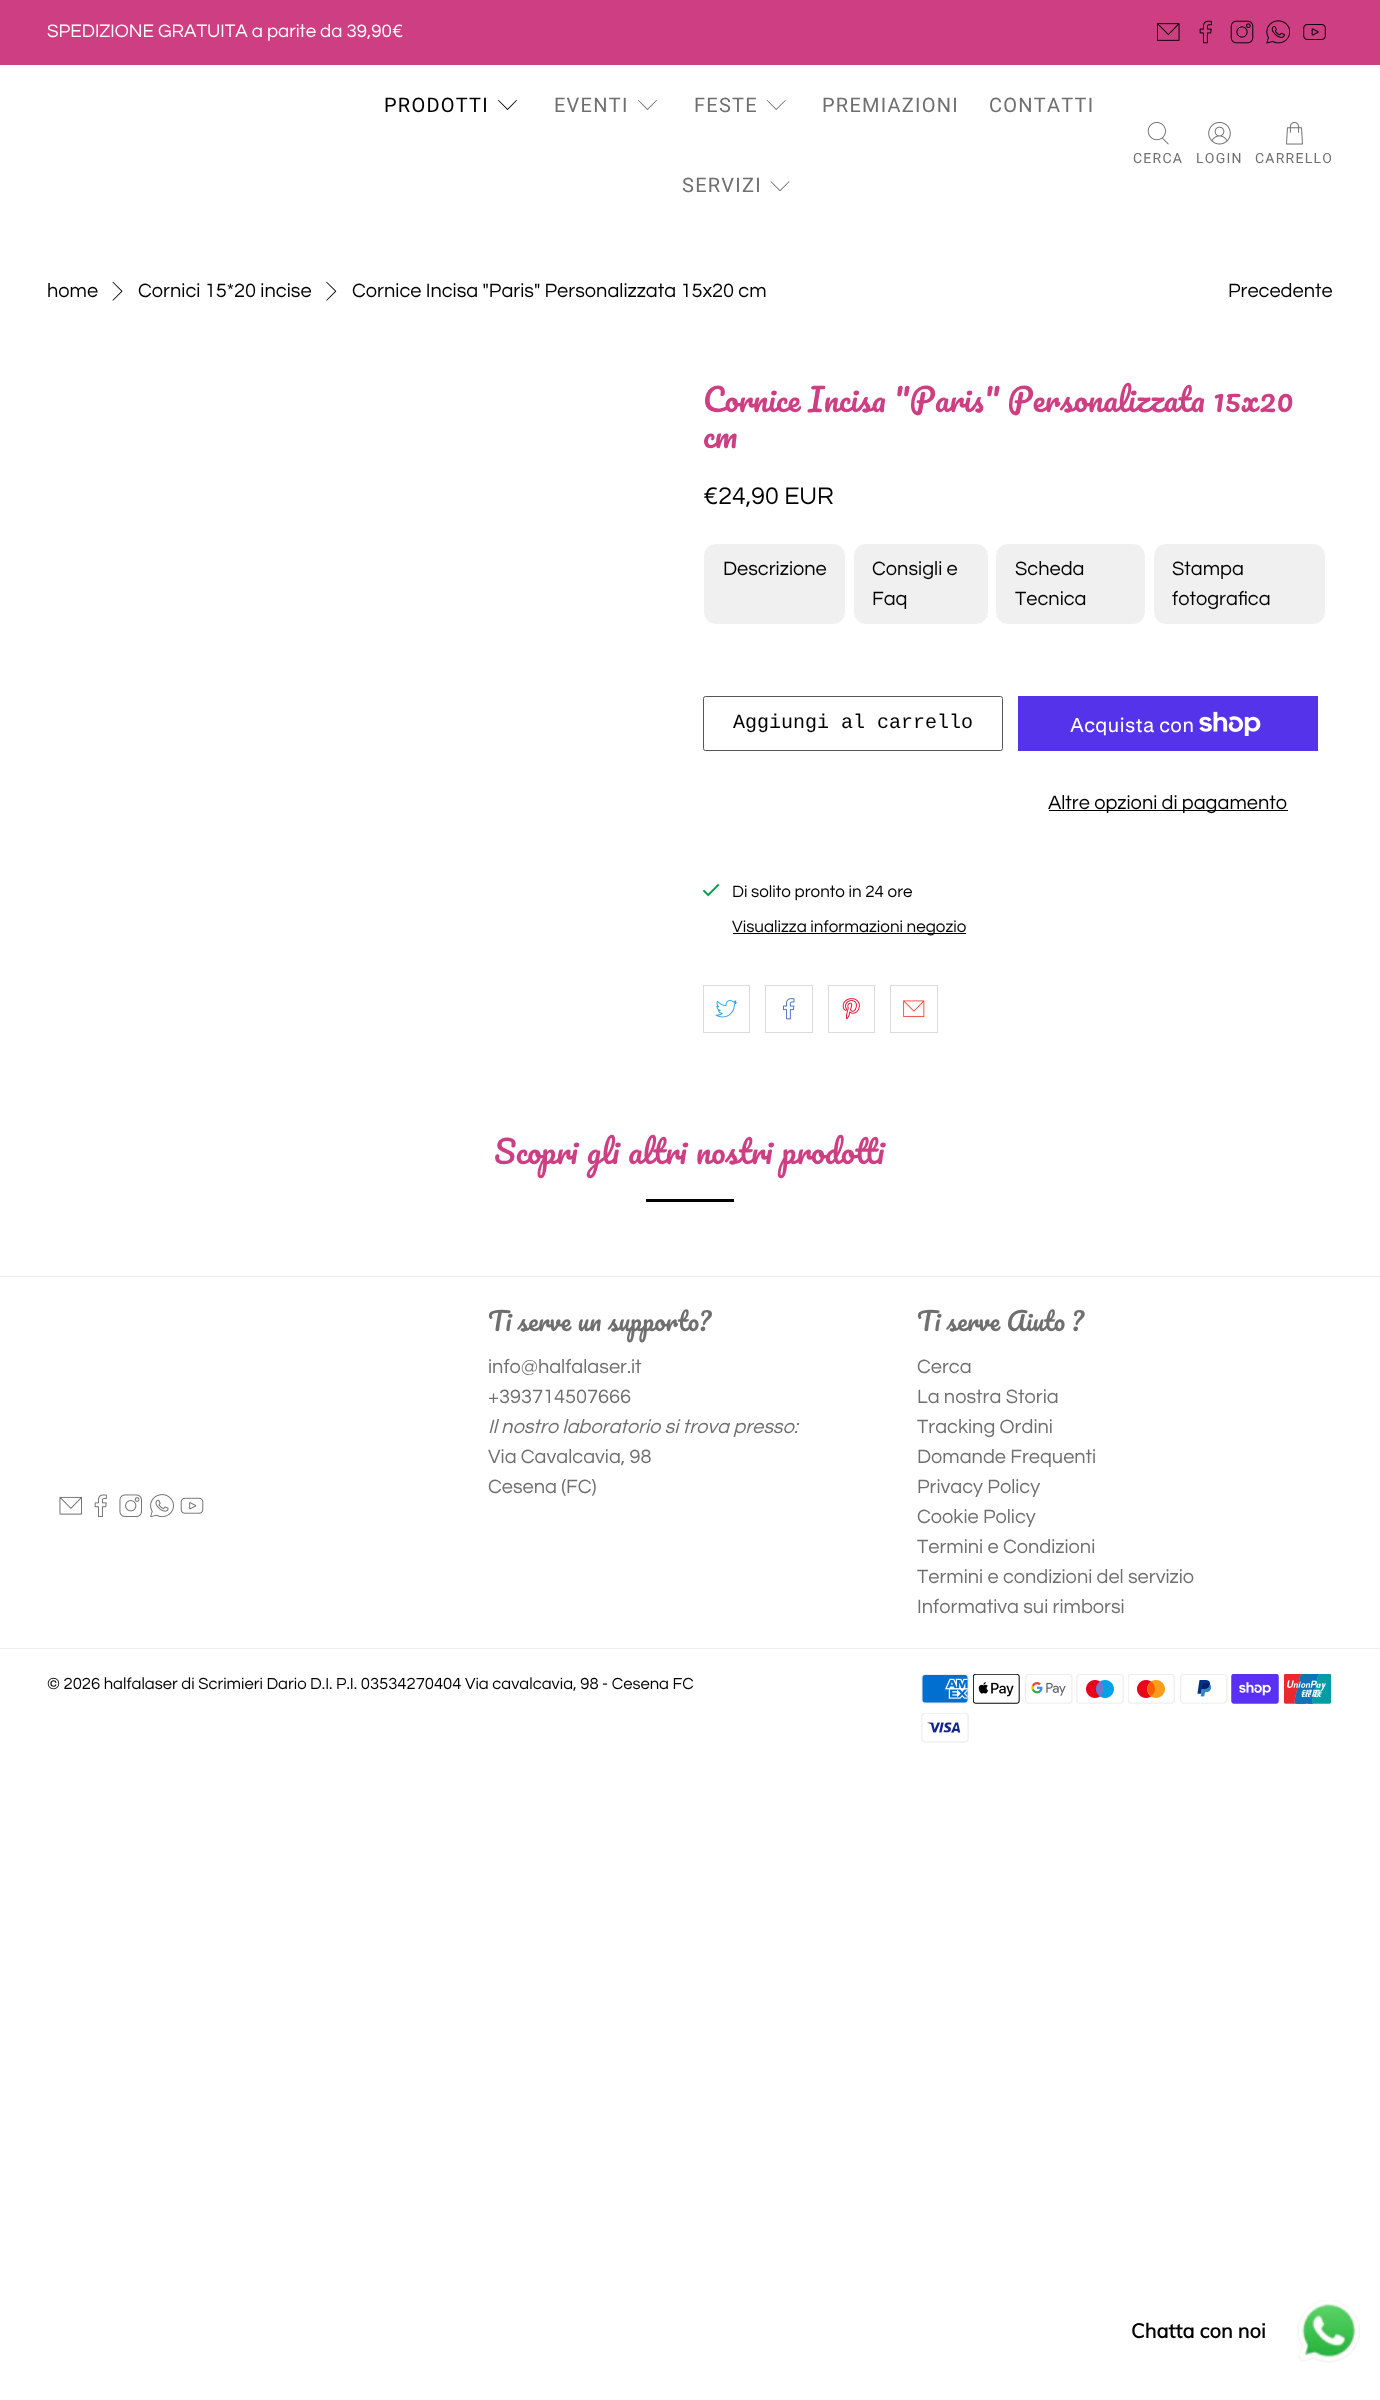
(async () => {
    const canvas = document.querySelector("canvas");
    canvas.width = 1380;
    canvas.height = 2400;
    const context = canvas.getContext("2d");
    context.miterLimit = 4;
    context.fontKerning = "none";
    function write(s, x, y, font, color) {
        context.font = font;
        context.fillStyle = color;
        context.fillText(s, x, y);
    }
    function block(x, y, w, h, color) {
        context.fillStyle = color;
        context.fillRect(x, y, w, h);
    }
    async function photo(src, x, y, w, h) {
        const img = new Image();
        img.src = src;
        await img.decode();
        context.drawImage(img, x, y, w, h);
    }

    block(0, 0, 1380, 2400, "rgb(255, 255, 255)");
    block(0, 0, 1380, 65, "rgb(206, 62, 131)");
    write("SPEDIZIONE GRATUITA a parite da 39,90€", 47, 37, "18.75px Questrial", "rgb(255, 255, 255)");
    await photo("media/1.png", 1157, 23, 23, 18);
    await photo("media/2.png", 1199, 20, 13, 24);
    await photo("media/3.png", 1230, 20, 24, 24);
    await photo("media/4.png", 1266, 20, 24, 24);
    await photo("media/5.png", 1303, 24, 23, 16);
    context.letterSpacing = "1.25px";
    write("PRODOTTI", 384, 112, "20px Roboto", "rgb(0, 0, 0)");
    await photo("media/6.png", 498, 100, 19, 10);
    write("EVENTI", 554, 112, "20px Roboto", "rgb(111, 111, 111)");
    await photo("media/7.png", 638, 100, 19, 10);
    write("FESTE", 694, 112, "20px Roboto", "rgb(111, 111, 111)");
    await photo("media/8.png", 766, 100, 20, 10);
    write("PREMIAZIONI", 822, 112, "20px Roboto", "rgb(111, 111, 111)");
    write("CONTATTI", 989, 112, "20px Roboto", "rgb(111, 111, 111)");
    write("SERVIZI", 682, 192, "20px Roboto", "rgb(111, 111, 111)");
    await photo("media/9.png", 770, 181, 20, 11);
    await photo("media/10.png", 1147, 122, 22, 23);
    write("CERCA", 1133, 163, "14px Roboto", "rgb(111, 111, 111)");
    await photo("media/11.png", 1208, 122, 23, 23);
    write("LOGIN", 1196, 163, "14px Roboto", "rgb(111, 111, 111)");
    await photo("media/12.png", 1286, 122, 17, 23);
    write("CARRELLO", 1255, 163, "14px Roboto", "rgb(111, 111, 111)");
    context.letterSpacing = "0px";
    write("home", 47, 297, "20px Questrial", "rgb(0, 0, 0)");
    await photo("media/13.png", 112, 281, 11, 20);
    write("Cornici 15*20 incise", 138, 297, "20px Questrial", "rgb(0, 0, 0)");
    await photo("media/14.png", 326, 281, 11, 20);
    write("Cornice Incisa \"Paris\" Personalizzata 15x20 cm", 352, 297, "20px Questrial", "rgb(0, 0, 0)");
    write("Precedente", 1228, 297, "20px Questrial", "rgb(0, 0, 0)");
    context.wordSpacing = "-0.5px";
    write("Cornice Incisa \"Paris\" Personalizzata", 703, 412, "31.25px Pacifico", "rgb(206, 62, 131)");
    write("15x20", 1213, 412, "31.25px Pacifico", "rgb(206, 62, 131)");
    context.wordSpacing = "0px";
    write("cm", 703, 448, "31.25px Pacifico", "rgb(206, 62, 131)");
    write("€24,90 EUR", 703, 504, "25px Questrial", "rgb(0, 0, 0)");
    context.fillStyle = "rgb(240, 240, 240)";
    context.beginPath();
    context.roundRect(703.5, 543.5, 142, 81, 12.5);
    context.fill();
    context.strokeStyle = "rgb(255, 255, 255)";
    context.stroke();
    write("Descrizione", 723, 575, "20px Questrial", "rgb(0, 0, 0)");
    context.fillStyle = "rgb(240, 240, 240)";
    context.beginPath();
    context.roundRect(853.5, 543.5, 135, 81, 12.5);
    context.fill();
    context.stroke();
    write("Consigli e", 872, 575, "20px Questrial", "rgb(0, 0, 0)");
    write("Faq", 872, 605, "20px Questrial", "rgb(0, 0, 0)");
    context.fillStyle = "rgb(240, 240, 240)";
    context.beginPath();
    context.roundRect(995.5, 543.5, 150, 81, 12.5);
    context.fill();
    context.stroke();
    write("Scheda", 1015, 575, "20px Questrial", "rgb(0, 0, 0)");
    write("Tecnica", 1015, 605, "20px Questrial", "rgb(0, 0, 0)");
    context.fillStyle = "rgb(240, 240, 240)";
    context.beginPath();
    context.roundRect(1153.5, 543.5, 172, 81, 12.5);
    context.fill();
    context.stroke();
    write("Stampa", 1172, 575, "20px Questrial", "rgb(0, 0, 0)");
    write("fotografica", 1172, 605, "20px Questrial", "rgb(0, 0, 0)");
    context.beginPath();
    context.roundRect(703.5, 696.5, 299, 54, 2);
    context.strokeStyle = "rgb(86, 86, 86)";
    context.stroke();
    write("Aggiungi al carrello", 733, 728, "20px Liberation Mono", "rgb(0, 0, 0)");
    block(1018, 696, 300, 55, "rgb(84, 51, 235)");
    write("Acquista con", 1070, 732, "20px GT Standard", "rgb(255, 255, 255)");
    await photo("media/15.png", 1199, 711, 62, 25);
    block(1049, 810, 239, 1, "rgb(0, 0, 0)");
    write("Altre opzioni di pagamento", 1048, 809, "20px Questrial", "rgb(0, 0, 0)");
    await photo("media/16.png", 703, 883, 17, 14);
    write("Di solito pronto in 24 ore", 732, 897, "17px Questrial", "rgb(0, 0, 0)");
    block(733, 933, 233, 1, "rgb(0, 0, 0)");
    write("Visualizza informazioni negozio", 732, 932, "17px Questrial", "rgb(0, 0, 0)");
    context.strokeStyle = "rgb(219, 219, 219)";
    context.strokeRect(703.5, 985.5, 46, 47);
    await photo("media/17.png", 715, 1000, 22, 18);
    context.strokeRect(765.5, 985.5, 47, 47);
    await photo("media/18.png", 783, 998, 12, 22);
    context.strokeRect(828.5, 985.5, 46, 47);
    await photo("media/19.png", 842, 998, 18, 22);
    context.strokeRect(890.5, 985.5, 47, 47);
    await photo("media/20.png", 903, 1000, 22, 18);
    context.wordSpacing = "1px";
    write("Scopri gli altri nostri prodotti", 494, 1164, "31.25px Pacifico", "rgb(206, 62, 131)");
    block(646, 1199, 88, 3, "rgb(0, 0, 0)");
    block(0, 1276, 1380, 1, "rgb(237, 237, 237)");
    block(0, 1648, 1380, 1, "rgb(237, 237, 237)");
    await photo("media/21.png", 59, 1496, 23, 19);
    await photo("media/22.png", 94, 1494, 13, 23);
    await photo("media/23.png", 119, 1494, 23, 23);
    await photo("media/24.png", 150, 1494, 24, 24);
    await photo("media/25.png", 180, 1497, 24, 17);
    context.wordSpacing = "0px";
    write("Ti serve un supporto?", 488, 1331, "25px Pacifico", "rgb(111, 111, 111)");
    write("info@halfalaser.it", 488, 1373, "20px Questrial", "rgb(111, 111, 111)");
    write("+393714507666", 488, 1403, "20px Questrial", "rgb(111, 111, 111)");
    write("Il nostro laboratorio si trova presso:", 488, 1433, "italic 20px Questrial", "rgb(111, 111, 111)");
    write("Via Cavalcavia, 98", 488, 1463, "20px Questrial", "rgb(111, 111, 111)");
    write("Cesena (FC)", 488, 1493, "20px Questrial", "rgb(111, 111, 111)");
    write("Ti serve Aiuto ?", 917, 1331, "25px Pacifico", "rgb(111, 111, 111)");
    write("Cerca", 917, 1373, "20px Questrial", "rgb(111, 111, 111)");
    write("La nostra Storia", 917, 1403, "20px Questrial", "rgb(111, 111, 111)");
    write("Tracking Ordini", 917, 1433, "20px Questrial", "rgb(111, 111, 111)");
    write("Domande Frequenti", 917, 1463, "20px Questrial", "rgb(111, 111, 111)");
    write("Privacy Policy", 917, 1493, "20px Questrial", "rgb(111, 111, 111)");
    write("Cookie Policy", 917, 1523, "20px Questrial", "rgb(111, 111, 111)");
    write("Termini e Condizioni", 917, 1553, "20px Questrial", "rgb(111, 111, 111)");
    write("Termini e condizioni del servizio", 917, 1583, "20px Questrial", "rgb(111, 111, 111)");
    write("Informativa sui rimborsi", 917, 1613, "20px Questrial", "rgb(111, 111, 111)");
    write("© 2026 halfalaser di Scrimieri Dario D.I. P.I. 03534270404 Via cavalcavia, 98 - Cesena FC", 47, 1689, "16.65px Questrial", "rgb(0, 0, 0)");
    await photo("media/26.png", 921, 1674, 48, 30);
    await photo("media/27.png", 973, 1674, 47, 30);
    await photo("media/28.png", 1025, 1674, 48, 30);
    await photo("media/29.png", 1076, 1674, 48, 30);
    await photo("media/30.png", 1128, 1674, 47, 30);
    await photo("media/31.png", 1180, 1674, 48, 30);
    await photo("media/32.png", 1231, 1674, 48, 30);
    await photo("media/33.png", 1284, 1674, 47, 30);
    await photo("media/34.png", 921, 1713, 48, 30);
    await photo("media/35.png", 1297, 2300, 63, 63);
    write("Chatta con noi", 1131, 2338, "bold 20px Muli", "rgb(0, 0, 0)");
})();
